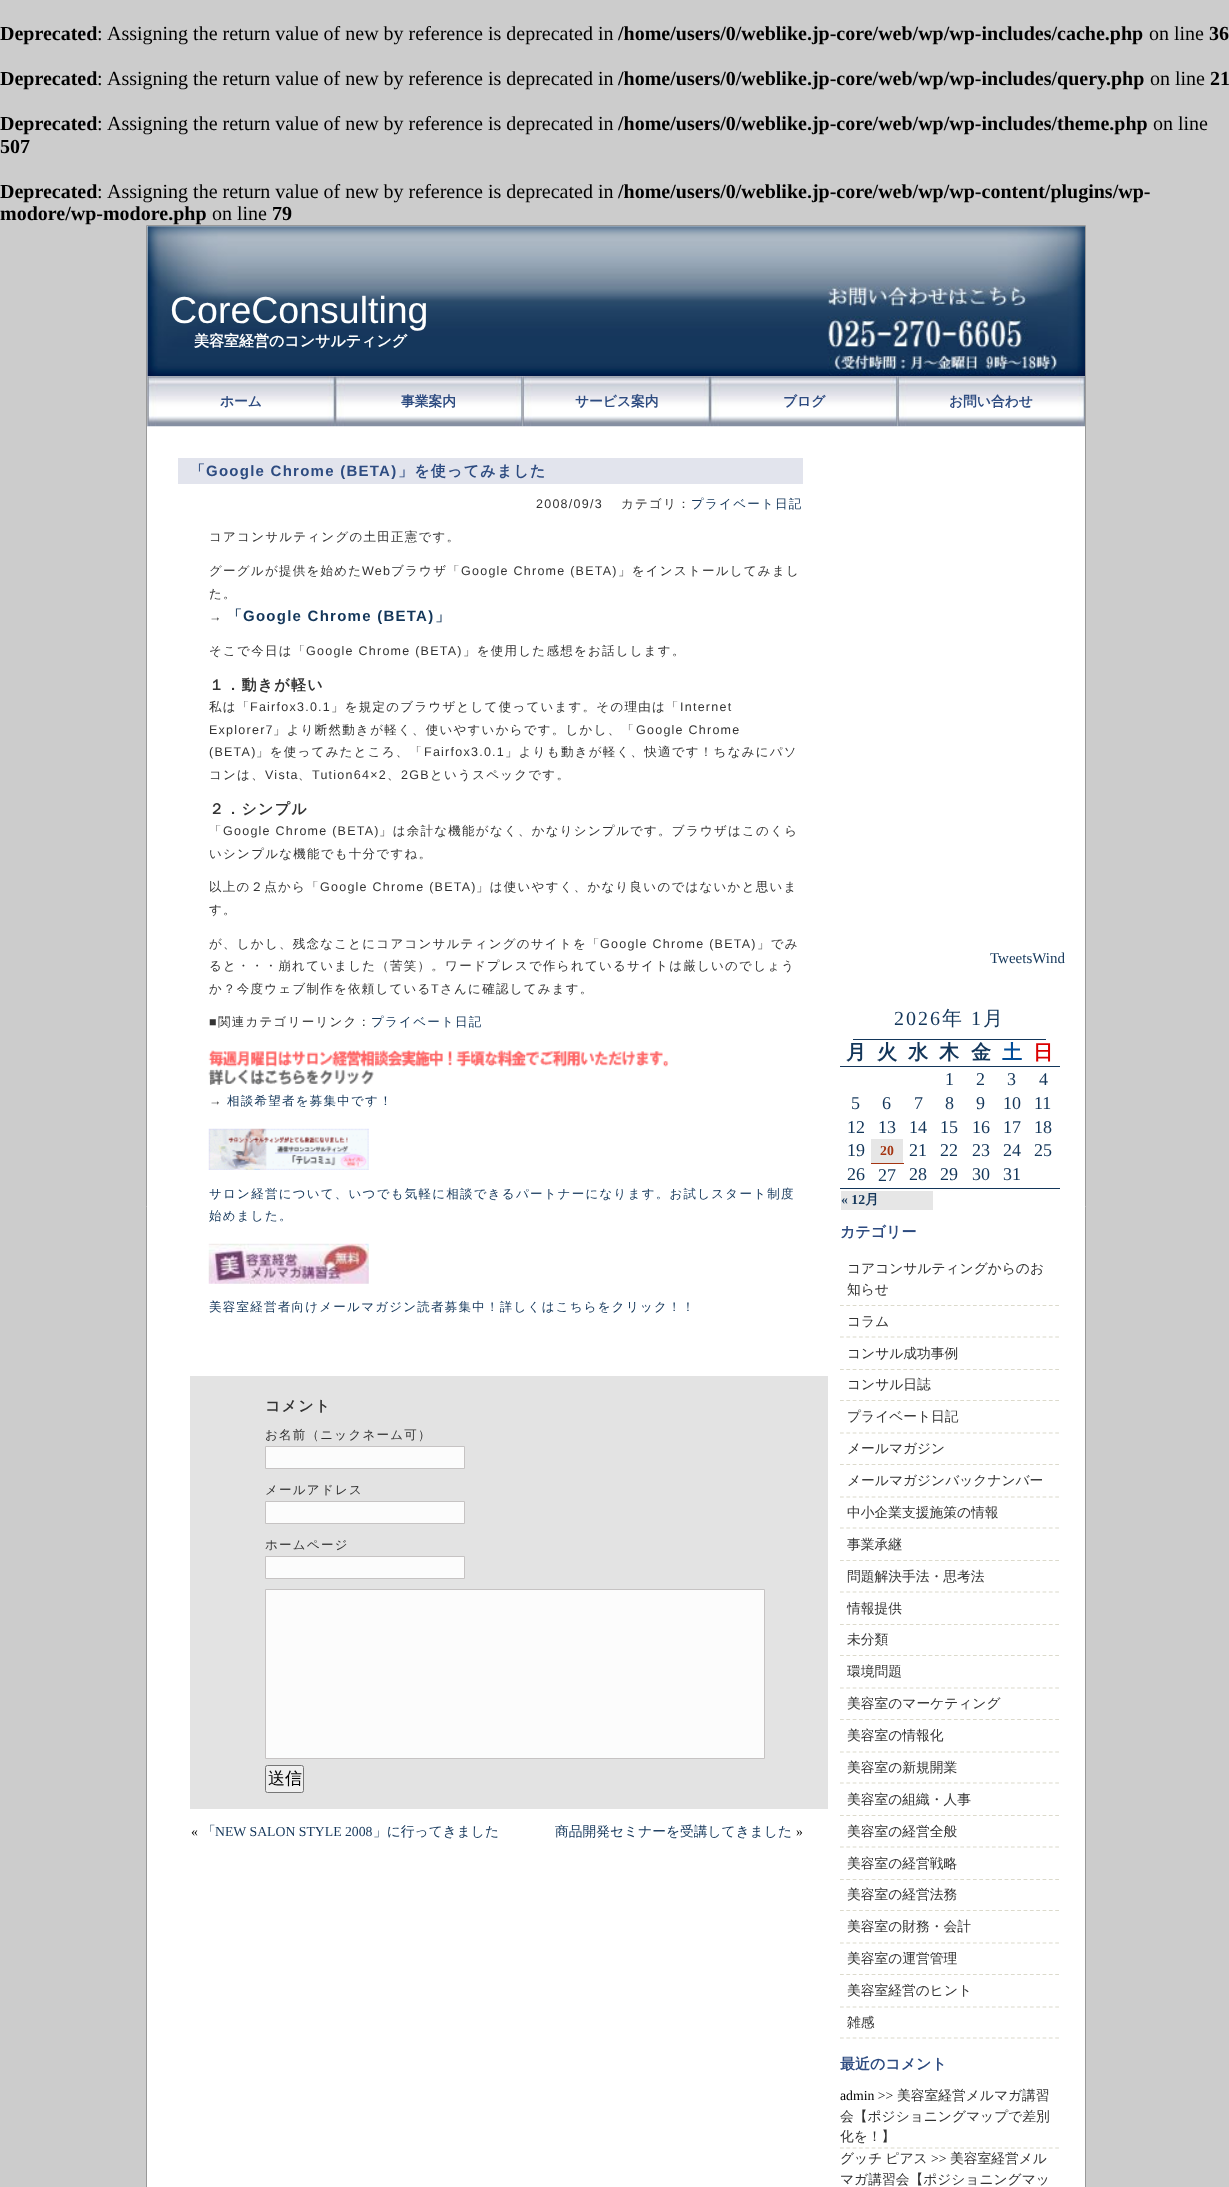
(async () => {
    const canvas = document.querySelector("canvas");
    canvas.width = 1229;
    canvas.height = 2187;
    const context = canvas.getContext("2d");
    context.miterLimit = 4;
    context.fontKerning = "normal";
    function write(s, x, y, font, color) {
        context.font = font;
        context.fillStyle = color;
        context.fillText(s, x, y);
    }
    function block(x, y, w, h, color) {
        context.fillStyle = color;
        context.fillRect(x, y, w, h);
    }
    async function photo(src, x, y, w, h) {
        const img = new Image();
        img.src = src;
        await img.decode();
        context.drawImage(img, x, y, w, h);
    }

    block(0, 0, 1229, 2187, "rgb(204, 204, 204)");
    write("Deprecated", 0, 40, "bold 20px Liberation Serif", "rgb(0, 0, 0)");
    write(":", 97, 40, "20px Liberation Serif", "rgb(0, 0, 0)");
    write("Assigning the return value of new by reference is deprecated in", 107, 40, "20px Liberation Serif", "rgb(0, 0, 0)");
    write("/home/users/0/weblike.jp-core/web/wp/wp-includes/cache.php", 618, 40, "bold 20px Liberation Serif", "rgb(0, 0, 0)");
    write("on line", 1149, 40, "20px Liberation Serif", "rgb(0, 0, 0)");
    write("36", 1209, 40, "bold 20px Liberation Serif", "rgb(0, 0, 0)");
    write("Deprecated", 0, 85, "bold 20px Liberation Serif", "rgb(0, 0, 0)");
    write(":", 97, 85, "20px Liberation Serif", "rgb(0, 0, 0)");
    write("Assigning the return value of new by reference is deprecated in", 107, 85, "20px Liberation Serif", "rgb(0, 0, 0)");
    write("/home/users/0/weblike.jp-core/web/wp/wp-includes/query.php", 618, 85, "bold 20px Liberation Serif", "rgb(0, 0, 0)");
    write("on line", 1150, 85, "20px Liberation Serif", "rgb(0, 0, 0)");
    write("21", 1210, 85, "bold 20px Liberation Serif", "rgb(0, 0, 0)");
    write("Deprecated", 0, 130, "bold 20px Liberation Serif", "rgb(0, 0, 0)");
    write(":", 97, 130, "20px Liberation Serif", "rgb(0, 0, 0)");
    write("Assigning the return value of new by reference is deprecated in", 107, 130, "20px Liberation Serif", "rgb(0, 0, 0)");
    write("/home/users/0/weblike.jp-core/web/wp/wp-includes/theme.php", 618, 130, "bold 20px Liberation Serif", "rgb(0, 0, 0)");
    write("on line", 1153, 130, "20px Liberation Serif", "rgb(0, 0, 0)");
    write("507", 0, 153, "bold 20px Liberation Serif", "rgb(0, 0, 0)");
    write("Deprecated", 0, 198, "bold 20px Liberation Serif", "rgb(0, 0, 0)");
    write(":", 97, 198, "20px Liberation Serif", "rgb(0, 0, 0)");
    write("Assigning the return value of new by reference is deprecated in", 107, 198, "20px Liberation Serif", "rgb(0, 0, 0)");
    write("/home/users/0/weblike.jp-core/web/wp/wp-content/plugins/wp-", 618, 198, "bold 20px Liberation Serif", "rgb(0, 0, 0)");
    write("modore/wp-modore.php", 0, 220, "bold 20px Liberation Serif", "rgb(0, 0, 0)");
    write("on line", 212, 220, "20px Liberation Serif", "rgb(0, 0, 0)");
    write("79", 272, 220, "bold 20px Liberation Serif", "rgb(0, 0, 0)");
    context.fillStyle = "rgb(255, 255, 255)";
    context.beginPath();
    context.rect(146.5, 225.5, 939, 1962);
    context.fill();
    context.strokeStyle = "rgb(153, 153, 153)";
    context.stroke();
    await photo("media/1.png", 147, 226, 938, 151);
    write("CoreConsulting", 170, 323, "37.5px Liberation Sans", "rgb(255, 255, 255)");
    write("美容室経営のコンサルティング", 194, 346, "bold 15px WenQuanYi Zen Hei", "rgb(255, 255, 255)");
    await photo("media/2.png", 147, 376, 1, 51);
    block(148, 376, 937, 1, "rgb(255, 255, 255)");
    await photo("media/3.png", 147, 376, 188, 51);
    write("ホーム", 220, 406, "bold 13.75px WenQuanYi Zen Hei", "rgb(45, 75, 128)");
    await photo("media/4.png", 335, 376, 188, 51);
    write("事業案内", 401, 406, "bold 13.75px WenQuanYi Zen Hei", "rgb(45, 75, 128)");
    await photo("media/5.png", 522, 376, 188, 51);
    write("サービス案内", 575, 406, "bold 13.75px WenQuanYi Zen Hei", "rgb(45, 75, 128)");
    await photo("media/6.png", 710, 376, 188, 51);
    write("ブログ", 783, 406, "bold 13.75px WenQuanYi Zen Hei", "rgb(45, 75, 128)");
    await photo("media/5.png", 897, 376, 188, 51);
    write("お問い合わせ", 949, 406, "bold 13.75px WenQuanYi Zen Hei", "rgb(45, 75, 128)");
    block(178, 458, 625, 26, "rgb(226, 228, 237)");
    context.letterSpacing = "1.25px";
    write("「", 190, 476, "bold 15px WenQuanYi Zen Hei", "rgb(45, 75, 128)");
    write("Google Chrome (BETA)", 206, 476, "bold 15px Liberation Sans", "rgb(45, 75, 128)");
    write("」を使ってみました", 398, 476, "bold 15px WenQuanYi Zen Hei", "rgb(45, 75, 128)");
    write("2008/09/3", 536, 508, "12.5px Liberation Sans", "rgb(51, 51, 51)");
    write("カテゴリ：", 621, 508, "500 12.5px WenQuanYi Zen Hei", "rgb(51, 51, 51)");
    write("プライベート日記", 691, 508, "500 12.5px WenQuanYi Zen Hei", "rgb(19, 54, 90)");
    write("コアコンサルティングの土田正憲です。", 209, 541, "500 12.5px WenQuanYi Zen Hei", "rgb(51, 51, 51)");
    write("グーグルが提供を始めた", 209, 575, "500 12.5px WenQuanYi Zen Hei", "rgb(51, 51, 51)");
    write("Web", 362, 575, "12.5px Liberation Sans", "rgb(51, 51, 51)");
    write("ブラウザ「", 391, 575, "500 12.5px WenQuanYi Zen Hei", "rgb(51, 51, 51)");
    write("Google Chrome (BETA)", 461, 575, "12.5px Liberation Sans", "rgb(51, 51, 51)");
    write("」をインストールしてみまし", 618, 575, "500 12.5px WenQuanYi Zen Hei", "rgb(51, 51, 51)");
    write("た。", 209, 598, "500 12.5px WenQuanYi Zen Hei", "rgb(51, 51, 51)");
    write("→", 209, 621, "12.5px Liberation Sans", "rgb(51, 51, 51)");
    write("「", 227, 621, "bold 15px WenQuanYi Zen Hei", "rgb(19, 54, 90)");
    write("Google Chrome (BETA)", 243, 621, "bold 15px Liberation Sans", "rgb(19, 54, 90)");
    write("」", 435, 621, "bold 15px WenQuanYi Zen Hei", "rgb(19, 54, 90)");
    write("そこで今日は「", 209, 655, "500 12.5px WenQuanYi Zen Hei", "rgb(51, 51, 51)");
    write("Google Chrome (BETA)", 306, 655, "12.5px Liberation Sans", "rgb(51, 51, 51)");
    write("」を使用した感想をお話しします。", 463, 655, "500 12.5px WenQuanYi Zen Hei", "rgb(51, 51, 51)");
    write("１．動きが軽い", 209, 690, "bold 15px WenQuanYi Zen Hei", "rgb(51, 51, 51)");
    write("私は「", 209, 711, "500 12.5px WenQuanYi Zen Hei", "rgb(51, 51, 51)");
    write("Fairfox3.0.1", 250, 711, "12.5px Liberation Sans", "rgb(51, 51, 51)");
    write("」を規定のブラウザとして使っています。その理由は「", 331, 711, "500 12.5px WenQuanYi Zen Hei", "rgb(51, 51, 51)");
    write("Internet", 680, 711, "12.5px Liberation Sans", "rgb(51, 51, 51)");
    write("Explorer7", 209, 734, "12.5px Liberation Sans", "rgb(51, 51, 51)");
    write("」より断然動きが軽く、使いやすいからです。しかし、「", 273, 734, "500 12.5px WenQuanYi Zen Hei", "rgb(51, 51, 51)");
    write("Google Chrome", 636, 734, "12.5px Liberation Sans", "rgb(51, 51, 51)");
    write("(BETA)", 209, 756, "12.5px Liberation Sans", "rgb(51, 51, 51)");
    write("」を使ってみたところ、「", 256, 756, "500 12.5px WenQuanYi Zen Hei", "rgb(51, 51, 51)");
    write("Fairfox3.0.1", 424, 756, "12.5px Liberation Sans", "rgb(51, 51, 51)");
    write("」よりも動きが軽く、快適です！ちなみにパソ", 505, 756, "500 12.5px WenQuanYi Zen Hei", "rgb(51, 51, 51)");
    write("コンは、", 209, 779, "500 12.5px WenQuanYi Zen Hei", "rgb(51, 51, 51)");
    write("Vista", 265, 779, "12.5px Liberation Sans", "rgb(51, 51, 51)");
    write("、", 298, 779, "500 12.5px WenQuanYi Zen Hei", "rgb(51, 51, 51)");
    write("Tution64×2", 312, 779, "12.5px Liberation Sans", "rgb(51, 51, 51)");
    write("、", 387, 779, "500 12.5px WenQuanYi Zen Hei", "rgb(51, 51, 51)");
    write("2GB", 401, 779, "12.5px Liberation Sans", "rgb(51, 51, 51)");
    write("というスペックです。", 430, 779, "500 12.5px WenQuanYi Zen Hei", "rgb(51, 51, 51)");
    write("２．シンプル", 209, 814, "bold 15px WenQuanYi Zen Hei", "rgb(51, 51, 51)");
    write("「", 209, 835, "500 12.5px WenQuanYi Zen Hei", "rgb(51, 51, 51)");
    write("Google Chrome (BETA)", 223, 835, "12.5px Liberation Sans", "rgb(51, 51, 51)");
    write("」は余計な機能がなく、かなりシンプルです。ブラウザはこのくら", 379, 835, "500 12.5px WenQuanYi Zen Hei", "rgb(51, 51, 51)");
    write("いシンプルな機能でも十分ですね。", 209, 858, "500 12.5px WenQuanYi Zen Hei", "rgb(51, 51, 51)");
    write("以上の２点から「", 209, 891, "500 12.5px WenQuanYi Zen Hei", "rgb(51, 51, 51)");
    write("Google Chrome (BETA)", 320, 891, "12.5px Liberation Sans", "rgb(51, 51, 51)");
    write("」は使いやすく、かなり良いのではないかと思いま", 476, 891, "500 12.5px WenQuanYi Zen Hei", "rgb(51, 51, 51)");
    write("す。", 209, 914, "500 12.5px WenQuanYi Zen Hei", "rgb(51, 51, 51)");
    write("が、しかし、残念なことにコアコンサルティングのサイトを「", 209, 948, "500 12.5px WenQuanYi Zen Hei", "rgb(51, 51, 51)");
    write("Google Chrome (BETA)", 600, 948, "12.5px Liberation Sans", "rgb(51, 51, 51)");
    write("」でみ", 757, 948, "500 12.5px WenQuanYi Zen Hei", "rgb(51, 51, 51)");
    write("ると・・・崩れていました（苦笑）。ワードプレスで作られているサイトは厳しいのでしょう", 209, 970, "500 12.5px WenQuanYi Zen Hei", "rgb(51, 51, 51)");
    write("か？今度ウェブ制作を依頼している", 209, 993, "500 12.5px WenQuanYi Zen Hei", "rgb(51, 51, 51)");
    write("T", 431, 993, "12.5px Liberation Sans", "rgb(51, 51, 51)");
    write("さんに確認してみます。", 440, 993, "500 12.5px WenQuanYi Zen Hei", "rgb(51, 51, 51)");
    write("■", 209, 1026, "12.5px Liberation Sans", "rgb(51, 51, 51)");
    write("関連カテゴリーリンク：", 218, 1026, "500 12.5px WenQuanYi Zen Hei", "rgb(51, 51, 51)");
    write("プライベート日記", 371, 1026, "500 12.5px WenQuanYi Zen Hei", "rgb(19, 54, 90)");
    await photo("media/7.png", 208, 1050, 461, 35);
    write("→", 209, 1105, "12.5px Liberation Sans", "rgb(51, 51, 51)");
    write("相談希望者を募集中です！", 227, 1105, "500 12.5px WenQuanYi Zen Hei", "rgb(19, 54, 90)");
    await photo("media/8.png", 208, 1128, 161, 42);
    write("サロン経営について、いつでも気軽に相談できるパートナーになります。お試しスタート制度", 209, 1198, "500 12.5px WenQuanYi Zen Hei", "rgb(19, 54, 90)");
    write("始めました。", 209, 1220, "500 12.5px WenQuanYi Zen Hei", "rgb(19, 54, 90)");
    await photo("media/9.png", 208, 1243, 161, 41);
    write("美容室経営者向けメールマガジン読者募集中！詳しくはこちらをクリック！！", 209, 1311, "500 12.5px WenQuanYi Zen Hei", "rgb(19, 54, 90)");
    block(190, 1376, 638, 433, "rgb(227, 227, 227)");
    write("コメント", 265, 1411, "bold 15px WenQuanYi Zen Hei", "rgb(51, 51, 51)");
    write("お名前（ニックネーム可）", 265, 1439, "500 12.5px WenQuanYi Zen Hei", "rgb(51, 51, 51)");
    context.fillStyle = "rgb(252, 252, 252)";
    context.beginPath();
    context.rect(265.5, 1446.5, 199, 22);
    context.fill();
    context.strokeStyle = "rgb(198, 195, 195)";
    context.stroke();
    write("メールアドレス", 265, 1494, "500 12.5px WenQuanYi Zen Hei", "rgb(51, 51, 51)");
    context.fillStyle = "rgb(252, 252, 252)";
    context.beginPath();
    context.rect(265.5, 1501.5, 199, 22);
    context.fill();
    context.stroke();
    write("ホームページ", 265, 1549, "500 12.5px WenQuanYi Zen Hei", "rgb(51, 51, 51)");
    context.fillStyle = "rgb(252, 252, 252)";
    context.beginPath();
    context.rect(265.5, 1556.5, 199, 22);
    context.fill();
    context.stroke();
    context.beginPath();
    context.rect(265.5, 1589.5, 499, 169);
    context.fill();
    context.stroke();
    context.fillStyle = "rgb(239, 239, 239)";
    context.beginPath();
    context.roundRect(265.5, 1765.5, 38, 27, 2);
    context.fill();
    context.strokeStyle = "rgb(118, 118, 118)";
    context.stroke();
    context.letterSpacing = "0px";
    write("送信", 268, 1784, "500 17px WenQuanYi Zen Hei", "rgb(0, 0, 0)");
    write("«", 191, 1836, "13.75px Liberation Serif", "rgb(0, 0, 0)");
    write("「", 202, 1836, "500 13.75px WenQuanYi Zen Hei", "rgb(19, 54, 90)");
    write("NEW SALON STYLE 2008", 215, 1836, "13.75px Liberation Serif", "rgb(19, 54, 90)");
    write("」に行ってきました", 373, 1836, "500 13.75px WenQuanYi Zen Hei", "rgb(19, 54, 90)");
    write("商品開発セミナーを受講してきました", 555, 1836, "500 13.75px WenQuanYi Zen Hei", "rgb(19, 54, 90)");
    write("»", 796, 1836, "13.75px Liberation Serif", "rgb(0, 0, 0)");
    write("TweetsWind", 990, 963, "15px Liberation Serif", "rgb(19, 54, 90)");
    block(853, 1039, 193, 1, "rgb(19, 54, 90)");
    context.letterSpacing = "2px";
    write("2026", 894, 1025, "20px Liberation Serif", "rgb(19, 54, 90)");
    write("年", 942, 1025, "500 20px WenQuanYi Zen Hei", "rgb(19, 54, 90)");
    write("1", 971, 1025, "20px Liberation Serif", "rgb(19, 54, 90)");
    write("月", 983, 1025, "500 20px WenQuanYi Zen Hei", "rgb(19, 54, 90)");
    context.letterSpacing = "0px";
    write("月", 846, 1059, "bold 20px WenQuanYi Zen Hei", "rgb(19, 54, 90)");
    write("火", 877, 1059, "bold 20px WenQuanYi Zen Hei", "rgb(19, 54, 90)");
    write("水", 908, 1059, "bold 20px WenQuanYi Zen Hei", "rgb(19, 54, 90)");
    write("木", 939, 1059, "bold 20px WenQuanYi Zen Hei", "rgb(19, 54, 90)");
    write("金", 971, 1059, "bold 20px WenQuanYi Zen Hei", "rgb(19, 54, 90)");
    write("土", 1002, 1059, "bold 20px WenQuanYi Zen Hei", "rgb(0, 77, 153)");
    block(840, 1066, 220, 1, "rgb(19, 54, 90)");
    write("日", 1033, 1059, "bold 20px WenQuanYi Zen Hei", "rgb(219, 0, 0)");
    write("1", 945, 1085, "18px Liberation Serif", "rgb(19, 54, 90)");
    write("2", 976, 1085, "18px Liberation Serif", "rgb(19, 54, 90)");
    write("3", 1007, 1085, "18px Liberation Serif", "rgb(19, 54, 90)");
    write("4", 1039, 1085, "18px Liberation Serif", "rgb(19, 54, 90)");
    write("5", 851, 1109, "18px Liberation Serif", "rgb(19, 54, 90)");
    write("6", 882, 1109, "18px Liberation Serif", "rgb(19, 54, 90)");
    write("7", 914, 1109, "18px Liberation Serif", "rgb(19, 54, 90)");
    write("8", 945, 1109, "18px Liberation Serif", "rgb(19, 54, 90)");
    write("9", 976, 1109, "18px Liberation Serif", "rgb(19, 54, 90)");
    write("10", 1003, 1109, "18px Liberation Serif", "rgb(19, 54, 90)");
    write("11", 1034, 1109, "18px Liberation Serif", "rgb(19, 54, 90)");
    write("12", 847, 1133, "18px Liberation Serif", "rgb(19, 54, 90)");
    write("13", 878, 1133, "18px Liberation Serif", "rgb(19, 54, 90)");
    write("14", 909, 1133, "18px Liberation Serif", "rgb(19, 54, 90)");
    write("15", 940, 1133, "18px Liberation Serif", "rgb(19, 54, 90)");
    write("16", 972, 1133, "18px Liberation Serif", "rgb(19, 54, 90)");
    write("17", 1003, 1133, "18px Liberation Serif", "rgb(19, 54, 90)");
    write("18", 1034, 1133, "18px Liberation Serif", "rgb(19, 54, 90)");
    write("19", 847, 1156, "18px Liberation Serif", "rgb(19, 54, 90)");
    block(871, 1139, 32, 24, "rgb(230, 230, 230)");
    block(871, 1163, 33, 1, "rgb(165, 53, 18)");
    write("20", 880, 1155, "bold 13.75px Liberation Serif", "rgb(165, 53, 18)");
    write("21", 909, 1156, "18px Liberation Serif", "rgb(19, 54, 90)");
    write("22", 940, 1156, "18px Liberation Serif", "rgb(19, 54, 90)");
    write("23", 972, 1156, "18px Liberation Serif", "rgb(19, 54, 90)");
    write("24", 1003, 1156, "18px Liberation Serif", "rgb(19, 54, 90)");
    write("25", 1034, 1156, "18px Liberation Serif", "rgb(19, 54, 90)");
    write("26", 847, 1180, "18px Liberation Serif", "rgb(19, 54, 90)");
    write("27", 878, 1181, "18px Liberation Serif", "rgb(19, 54, 90)");
    write("28", 909, 1180, "18px Liberation Serif", "rgb(19, 54, 90)");
    write("29", 940, 1180, "18px Liberation Serif", "rgb(19, 54, 90)");
    write("30", 972, 1180, "18px Liberation Serif", "rgb(19, 54, 90)");
    write("31", 1003, 1180, "18px Liberation Serif", "rgb(19, 54, 90)");
    block(840, 1188, 220, 1, "rgb(19, 54, 90)");
    block(841, 1191, 92, 19, "rgb(230, 230, 230)");
    write("« 12", 841, 1204, "bold 13.75px Liberation Serif", "rgb(19, 54, 90)");
    write("月", 865, 1204, "bold 13.75px WenQuanYi Zen Hei", "rgb(19, 54, 90)");
    write("カテゴリー", 840, 1237, "bold 15px WenQuanYi Zen Hei", "rgb(45, 75, 128)");
    context.beginPath();
    context.moveTo(840, 1305.5);
    context.lineTo(1059, 1305.5);
    context.strokeStyle = "rgb(220, 218, 204)";
    context.lineWidth = 1.2;
    context.setLineDash([3.75, 2.58]);
    context.stroke();
    write("コアコンサルティングからのお", 847, 1273, "500 13.75px WenQuanYi Zen Hei", "rgb(51, 51, 51)");
    write("知らせ", 847, 1294, "500 13.75px WenQuanYi Zen Hei", "rgb(51, 51, 51)");
    context.beginPath();
    context.moveTo(840, 1337);
    context.lineTo(1059, 1337);
    context.stroke();
    write("コラム", 847, 1326, "500 13.75px WenQuanYi Zen Hei", "rgb(51, 51, 51)");
    context.beginPath();
    context.moveTo(840, 1369.5);
    context.lineTo(1059, 1369.5);
    context.stroke();
    write("コンサル成功事例", 847, 1358, "500 13.75px WenQuanYi Zen Hei", "rgb(51, 51, 51)");
    context.beginPath();
    context.moveTo(840, 1400.5);
    context.lineTo(1059, 1400.5);
    context.stroke();
    write("コンサル日誌", 847, 1389, "500 13.75px WenQuanYi Zen Hei", "rgb(51, 51, 51)");
    context.beginPath();
    context.moveTo(840, 1433);
    context.lineTo(1059, 1433);
    context.stroke();
    write("プライベート日記", 847, 1421, "500 13.75px WenQuanYi Zen Hei", "rgb(51, 51, 51)");
    context.beginPath();
    context.moveTo(840, 1464.5);
    context.lineTo(1059, 1464.5);
    context.stroke();
    write("メールマガジン", 847, 1453, "500 13.75px WenQuanYi Zen Hei", "rgb(51, 51, 51)");
    context.beginPath();
    context.moveTo(840, 1497);
    context.lineTo(1059, 1497);
    context.stroke();
    write("メールマガジンバックナンバー", 847, 1485, "500 13.75px WenQuanYi Zen Hei", "rgb(51, 51, 51)");
    context.beginPath();
    context.moveTo(840, 1528);
    context.lineTo(1059, 1528);
    context.stroke();
    write("中小企業支援施策の情報", 847, 1517, "500 13.75px WenQuanYi Zen Hei", "rgb(51, 51, 51)");
    context.beginPath();
    context.moveTo(840, 1560.5);
    context.lineTo(1059, 1560.5);
    context.stroke();
    write("事業承継", 847, 1549, "500 13.75px WenQuanYi Zen Hei", "rgb(51, 51, 51)");
    context.beginPath();
    context.moveTo(840, 1592);
    context.lineTo(1059, 1592);
    context.stroke();
    write("問題解決手法・思考法", 847, 1581, "500 13.75px WenQuanYi Zen Hei", "rgb(51, 51, 51)");
    context.beginPath();
    context.moveTo(840, 1624.5);
    context.lineTo(1059, 1624.5);
    context.stroke();
    write("情報提供", 847, 1613, "500 13.75px WenQuanYi Zen Hei", "rgb(51, 51, 51)");
    context.beginPath();
    context.moveTo(840, 1655.5);
    context.lineTo(1059, 1655.5);
    context.stroke();
    write("未分類", 847, 1644, "500 13.75px WenQuanYi Zen Hei", "rgb(51, 51, 51)");
    context.beginPath();
    context.moveTo(840, 1688);
    context.lineTo(1059, 1688);
    context.stroke();
    write("環境問題", 847, 1676, "500 13.75px WenQuanYi Zen Hei", "rgb(51, 51, 51)");
    context.beginPath();
    context.moveTo(840, 1719.5);
    context.lineTo(1059, 1719.5);
    context.stroke();
    write("美容室のマーケティング", 847, 1708, "500 13.75px WenQuanYi Zen Hei", "rgb(51, 51, 51)");
    context.beginPath();
    context.moveTo(840, 1752);
    context.lineTo(1059, 1752);
    context.stroke();
    write("美容室の情報化", 847, 1740, "500 13.75px WenQuanYi Zen Hei", "rgb(51, 51, 51)");
    context.beginPath();
    context.moveTo(840, 1783);
    context.lineTo(1059, 1783);
    context.stroke();
    write("美容室の新規開業", 847, 1772, "500 13.75px WenQuanYi Zen Hei", "rgb(51, 51, 51)");
    context.beginPath();
    context.moveTo(840, 1815.5);
    context.lineTo(1059, 1815.5);
    context.stroke();
    write("美容室の組織・人事", 847, 1804, "500 13.75px WenQuanYi Zen Hei", "rgb(51, 51, 51)");
    context.beginPath();
    context.moveTo(840, 1847);
    context.lineTo(1059, 1847);
    context.stroke();
    write("美容室の経営全般", 847, 1836, "500 13.75px WenQuanYi Zen Hei", "rgb(51, 51, 51)");
    context.beginPath();
    context.moveTo(840, 1879.5);
    context.lineTo(1059, 1879.5);
    context.stroke();
    write("美容室の経営戦略", 847, 1868, "500 13.75px WenQuanYi Zen Hei", "rgb(51, 51, 51)");
    context.beginPath();
    context.moveTo(840, 1910.5);
    context.lineTo(1059, 1910.5);
    context.stroke();
    write("美容室の経営法務", 847, 1899, "500 13.75px WenQuanYi Zen Hei", "rgb(51, 51, 51)");
    context.beginPath();
    context.moveTo(840, 1943);
    context.lineTo(1059, 1943);
    context.stroke();
    write("美容室の財務・会計", 847, 1931, "500 13.75px WenQuanYi Zen Hei", "rgb(51, 51, 51)");
    context.beginPath();
    context.moveTo(840, 1974.5);
    context.lineTo(1059, 1974.5);
    context.stroke();
    write("美容室の運営管理", 847, 1963, "500 13.75px WenQuanYi Zen Hei", "rgb(51, 51, 51)");
    context.beginPath();
    context.moveTo(840, 2007);
    context.lineTo(1059, 2007);
    context.stroke();
    write("美容室経営のヒント", 847, 1995, "500 13.75px WenQuanYi Zen Hei", "rgb(51, 51, 51)");
    context.beginPath();
    context.moveTo(840, 2038);
    context.lineTo(1059, 2038);
    context.stroke();
    write("雑感", 847, 2027, "500 13.75px WenQuanYi Zen Hei", "rgb(51, 51, 51)");
    write("最近のコメント", 840, 2069, "bold 15px WenQuanYi Zen Hei", "rgb(45, 75, 128)");
    context.beginPath();
    context.moveTo(840, 2148);
    context.lineTo(1059, 2148);
    context.stroke();
    write("admin >>", 840, 2100, "13.75px Liberation Serif", "rgb(0, 0, 0)");
    write("美容室経営メルマガ講習", 897, 2100, "500 13.75px WenQuanYi Zen Hei", "rgb(51, 51, 51)");
    write("会【ポジショニングマップで差別", 840, 2121, "500 13.75px WenQuanYi Zen Hei", "rgb(51, 51, 51)");
    write("化を！】", 840, 2141, "500 13.75px WenQuanYi Zen Hei", "rgb(51, 51, 51)");
    context.wordSpacing = "-1px";
    write("グッチ ピアス", 840, 2163, "500 13.75px WenQuanYi Zen Hei", "rgb(51, 51, 51)");
    context.wordSpacing = "0px";
    write(">>", 931, 2163, "13.75px Liberation Serif", "rgb(0, 0, 0)");
    write("美容室経営メル", 950, 2163, "500 13.75px WenQuanYi Zen Hei", "rgb(51, 51, 51)");
    write("マガ講習会【ポジショニングマッ", 840, 2184, "500 13.75px WenQuanYi Zen Hei", "rgb(51, 51, 51)");
})();
